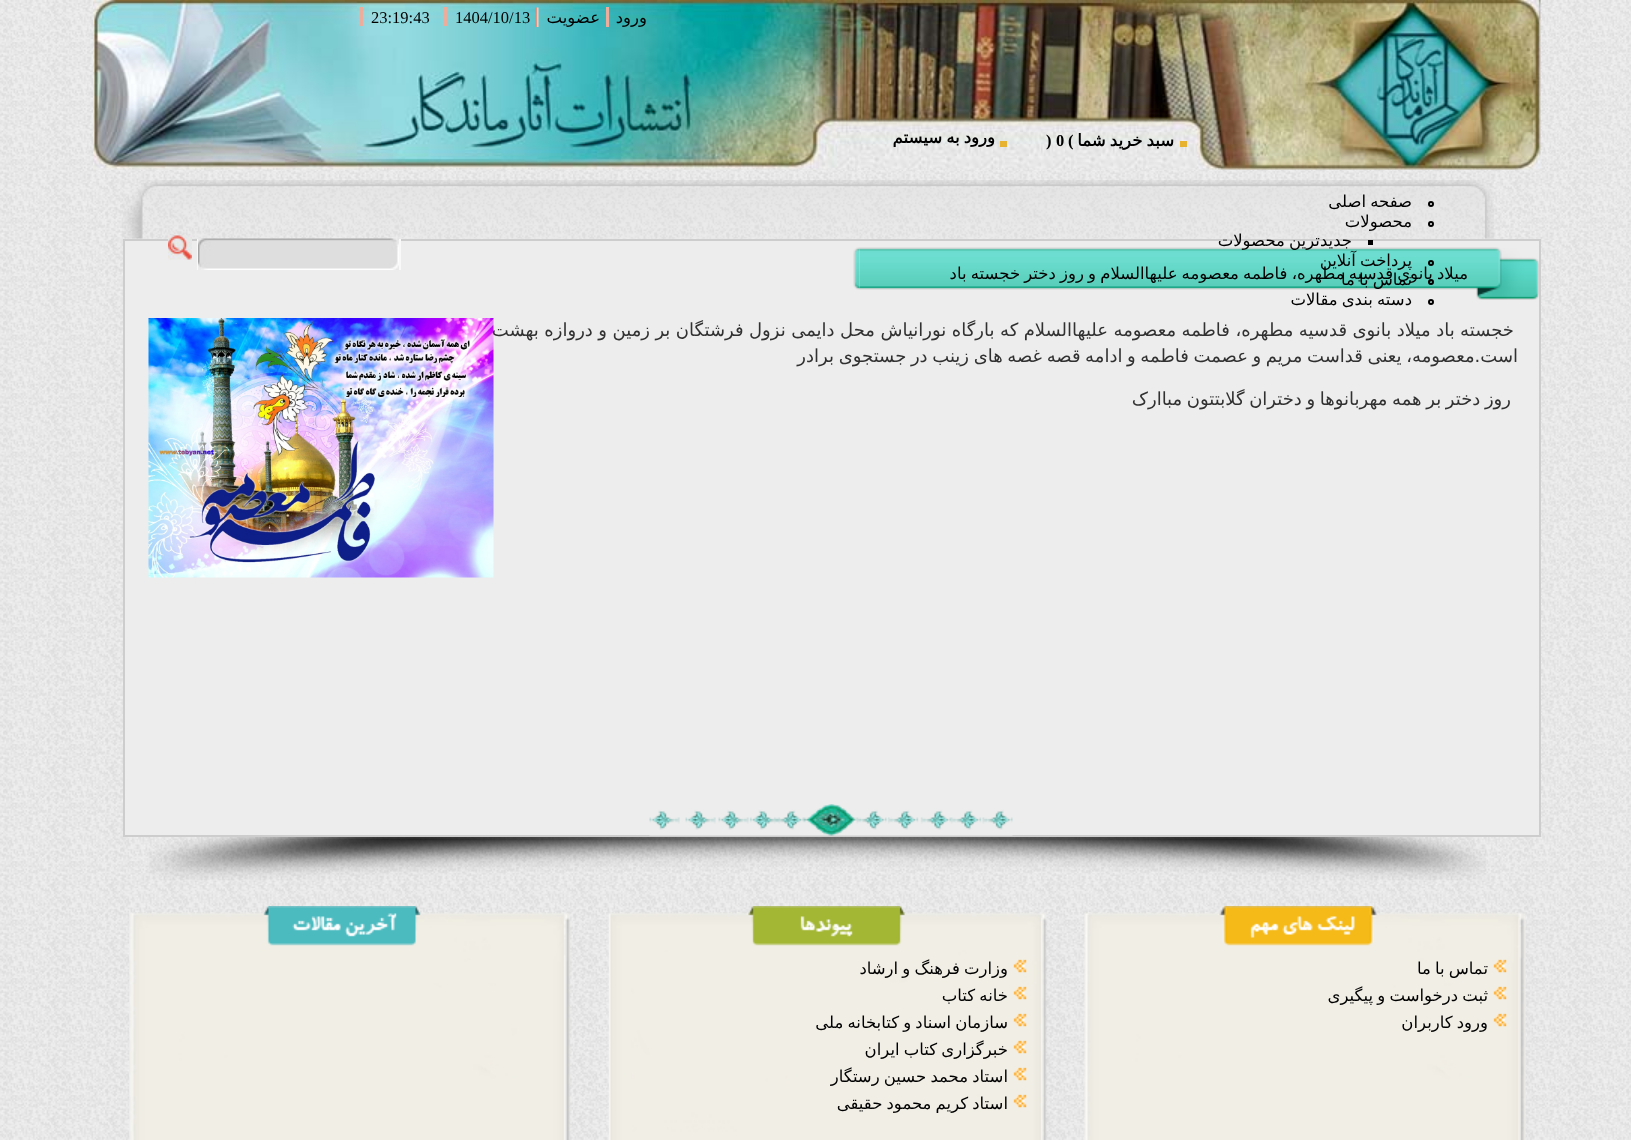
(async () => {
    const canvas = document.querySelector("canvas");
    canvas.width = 1631;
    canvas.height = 1140;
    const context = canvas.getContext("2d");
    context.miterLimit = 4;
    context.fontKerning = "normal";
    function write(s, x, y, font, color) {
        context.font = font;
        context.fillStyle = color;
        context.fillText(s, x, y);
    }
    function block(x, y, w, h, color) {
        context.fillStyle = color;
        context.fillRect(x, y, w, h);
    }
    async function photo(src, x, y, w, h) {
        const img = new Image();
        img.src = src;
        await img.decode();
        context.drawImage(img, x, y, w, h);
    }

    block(0, 0, 1631, 1140, "rgb(255, 255, 255)");
    await photo("media/1.png", 0, 0, 1631, 1140);
    await photo("media/2.png", 93, 0, 1448, 170);
    block(606, 7, 3, 20, "rgb(237, 173, 157)");
    context.direction = "rtl";
    write("ورود", 647, 23, "16.5px DejaVu Sans", "rgb(0, 0, 0)");
    await photo("media/3.png", 535, 7, 4, 20);
    write("عضویت", 600, 23, "16.5px DejaVu Sans", "rgb(0, 0, 0)");
    block(444, 7, 3, 19, "rgb(237, 173, 157)");
    context.direction = "ltr";
    write("1404/10/13", 455, 23, "16.5px Liberation Serif", "rgb(0, 0, 0)");
    block(360, 7, 3, 19, "rgb(237, 173, 157)");
    write("23:19:43", 371, 23, "16.5px Liberation Serif", "rgb(0, 0, 0)");
    block(1180, 141, 7, 6, "rgb(231, 178, 47)");
    context.wordSpacing = "-1.1px";
    context.direction = "rtl";
    write("سبد خرید شما", 1174, 146, "bold 16.5px DejaVu Sans", "rgb(0, 0, 0)");
    context.wordSpacing = "0px";
    context.direction = "ltr";
    write("(", 1068, 146, "bold 16.5px Liberation Serif", "rgb(0, 0, 0)");
    write("0", 1056, 146, "bold 16.5px Liberation Serif", "rgb(0, 0, 0)");
    write(")", 1046, 146, "bold 16.5px Liberation Serif", "rgb(0, 0, 0)");
    block(1000, 141, 7, 6, "rgb(231, 178, 47)");
    context.wordSpacing = "-1.1px";
    context.direction = "rtl";
    write("ورود به سیستم", 995, 143, "bold 16.5px DejaVu Sans", "rgb(0, 0, 0)");
    await photo("media/4.png", 122, 180, 1372, 59);
    context.beginPath();
    context.arc(1431, 204, 2, 0, Math.PI * 2);
    context.strokeStyle = "rgb(0, 0, 0)";
    context.lineWidth = 2;
    context.stroke();
    write("صفحه اصلی", 1412, 207, "16.5px DejaVu Sans", "rgb(0, 0, 0)");
    context.beginPath();
    context.arc(1431, 224, 2, 0, Math.PI * 2);
    context.stroke();
    context.wordSpacing = "0px";
    write("محصولات", 1412, 227, "16.5px DejaVu Sans", "rgb(0, 0, 0)");
    context.fillStyle = "rgb(237, 237, 237)";
    context.beginPath();
    context.rect(124, 240, 1416, 596);
    context.fill();
    context.strokeStyle = "rgb(205, 205, 205)";
    context.stroke();
    block(1368, 240, 5, 5, "rgb(0, 0, 0)");
    await photo("media/8.png", 859, 247, 617, 43);
    context.wordSpacing = "-1.1px";
    write("جدیدترین محصولات", 1352, 246, "16.5px DejaVu Sans", "rgb(0, 0, 0)");
    context.beginPath();
    context.arc(1431, 263, 2, 0, Math.PI * 2);
    context.strokeStyle = "rgb(0, 0, 0)";
    context.stroke();
    write("پرداخت آنلاین", 1412, 266, "16.5px DejaVu Sans", "rgb(0, 0, 0)");
    context.beginPath();
    context.arc(1431, 282, 2, 0, Math.PI * 2);
    context.stroke();
    write("میلاد بانوی قدسیه مطهره، فاطمه معصومه علیهاالسلام و روز دختر خجسته باد", 1468, 279, "16.5px DejaVu Sans", "rgb(0, 0, 0)");
    write("تماس با ما", 1412, 285, "16.5px DejaVu Sans", "rgb(0, 0, 0)");
    context.beginPath();
    context.arc(1431, 302, 2, 0, Math.PI * 2);
    context.stroke();
    write("دسته بندی مقالات", 1412, 305, "16.5px DejaVu Sans", "rgb(0, 0, 0)");
    block(197, 239, 204, 31, "rgb(249, 249, 249)");
    await photo("media/5.png", 198, 238, 201, 32);
    await photo("media/6.png", 168, 235, 24, 25);
    await photo("media/7.png", 1476, 247, 63, 53);
    await photo("media/9.png", 853, 247, 7, 43);
    await photo("media/10.png", 148, 318, 346, 260);
    context.wordSpacing = "-0.25px";
    write("خجسته باد میلاد بانوی قدسیه مطهره، فاطمه معصومه علیهاالسلام که بارگاه نورانیاش محل دایمی نزول فرشتگان بر زمین و دروازه بهشت", 1514, 336, "18px DejaVu Sans", "rgb(49, 49, 49)");
    context.wordSpacing = "-1.1px";
    write("است.معصومه، یعنی قداست مریم و عصمت فاطمه و ادامه قصه غصه های زینب در جستجوی برادر", 1518, 362, "18px DejaVu Sans", "rgb(49, 49, 49)");
    write("روز دختر بر همه مهربانوها و دختران گلابتتون مباارک", 1511, 405, "18px DejaVu Sans", "rgb(49, 49, 49)");
    await photo("media/11.png", 649, 804, 364, 32);
    await photo("media/12.png", 149, 837, 1337, 43);
    await photo("media/13.png", 129, 906, 1397, 234);
    await photo("media/14.png", 1493, 959, 14, 14);
    write("تماس با ما", 1488, 974, "16.5px DejaVu Sans", "rgb(0, 0, 0)");
    await photo("media/15.png", 1493, 986, 14, 14);
    write("ثبت درخواست و پیگیری", 1488, 1001, "16.5px DejaVu Sans", "rgb(0, 0, 0)");
    await photo("media/15.png", 1493, 1013, 14, 14);
    write("ورود کاربران", 1488, 1028, "16.5px DejaVu Sans", "rgb(0, 0, 0)");
    await photo("media/16.png", 1013, 959, 14, 14);
    write("وزارت فرهنگ و ارشاد", 1008, 974, "16.5px DejaVu Sans", "rgb(0, 0, 0)");
    await photo("media/17.png", 1013, 986, 14, 14);
    write("خانه کتاب", 1008, 1001, "16.5px DejaVu Sans", "rgb(0, 0, 0)");
    await photo("media/17.png", 1013, 1013, 14, 14);
    write("سازمان اسناد و کتابخانه ملی", 1008, 1028, "16.5px DejaVu Sans", "rgb(0, 0, 0)");
    await photo("media/17.png", 1013, 1040, 14, 14);
    write("خبرگزاری کتاب ایران", 1008, 1055, "16.5px DejaVu Sans", "rgb(0, 0, 0)");
    await photo("media/17.png", 1013, 1067, 14, 14);
    write("استاد محمد حسین رستگار", 1008, 1082, "16.5px DejaVu Sans", "rgb(0, 0, 0)");
    await photo("media/17.png", 1013, 1094, 14, 14);
    write("استاد کریم محمود حقیقی", 1008, 1109, "16.5px DejaVu Sans", "rgb(0, 0, 0)");
})();
